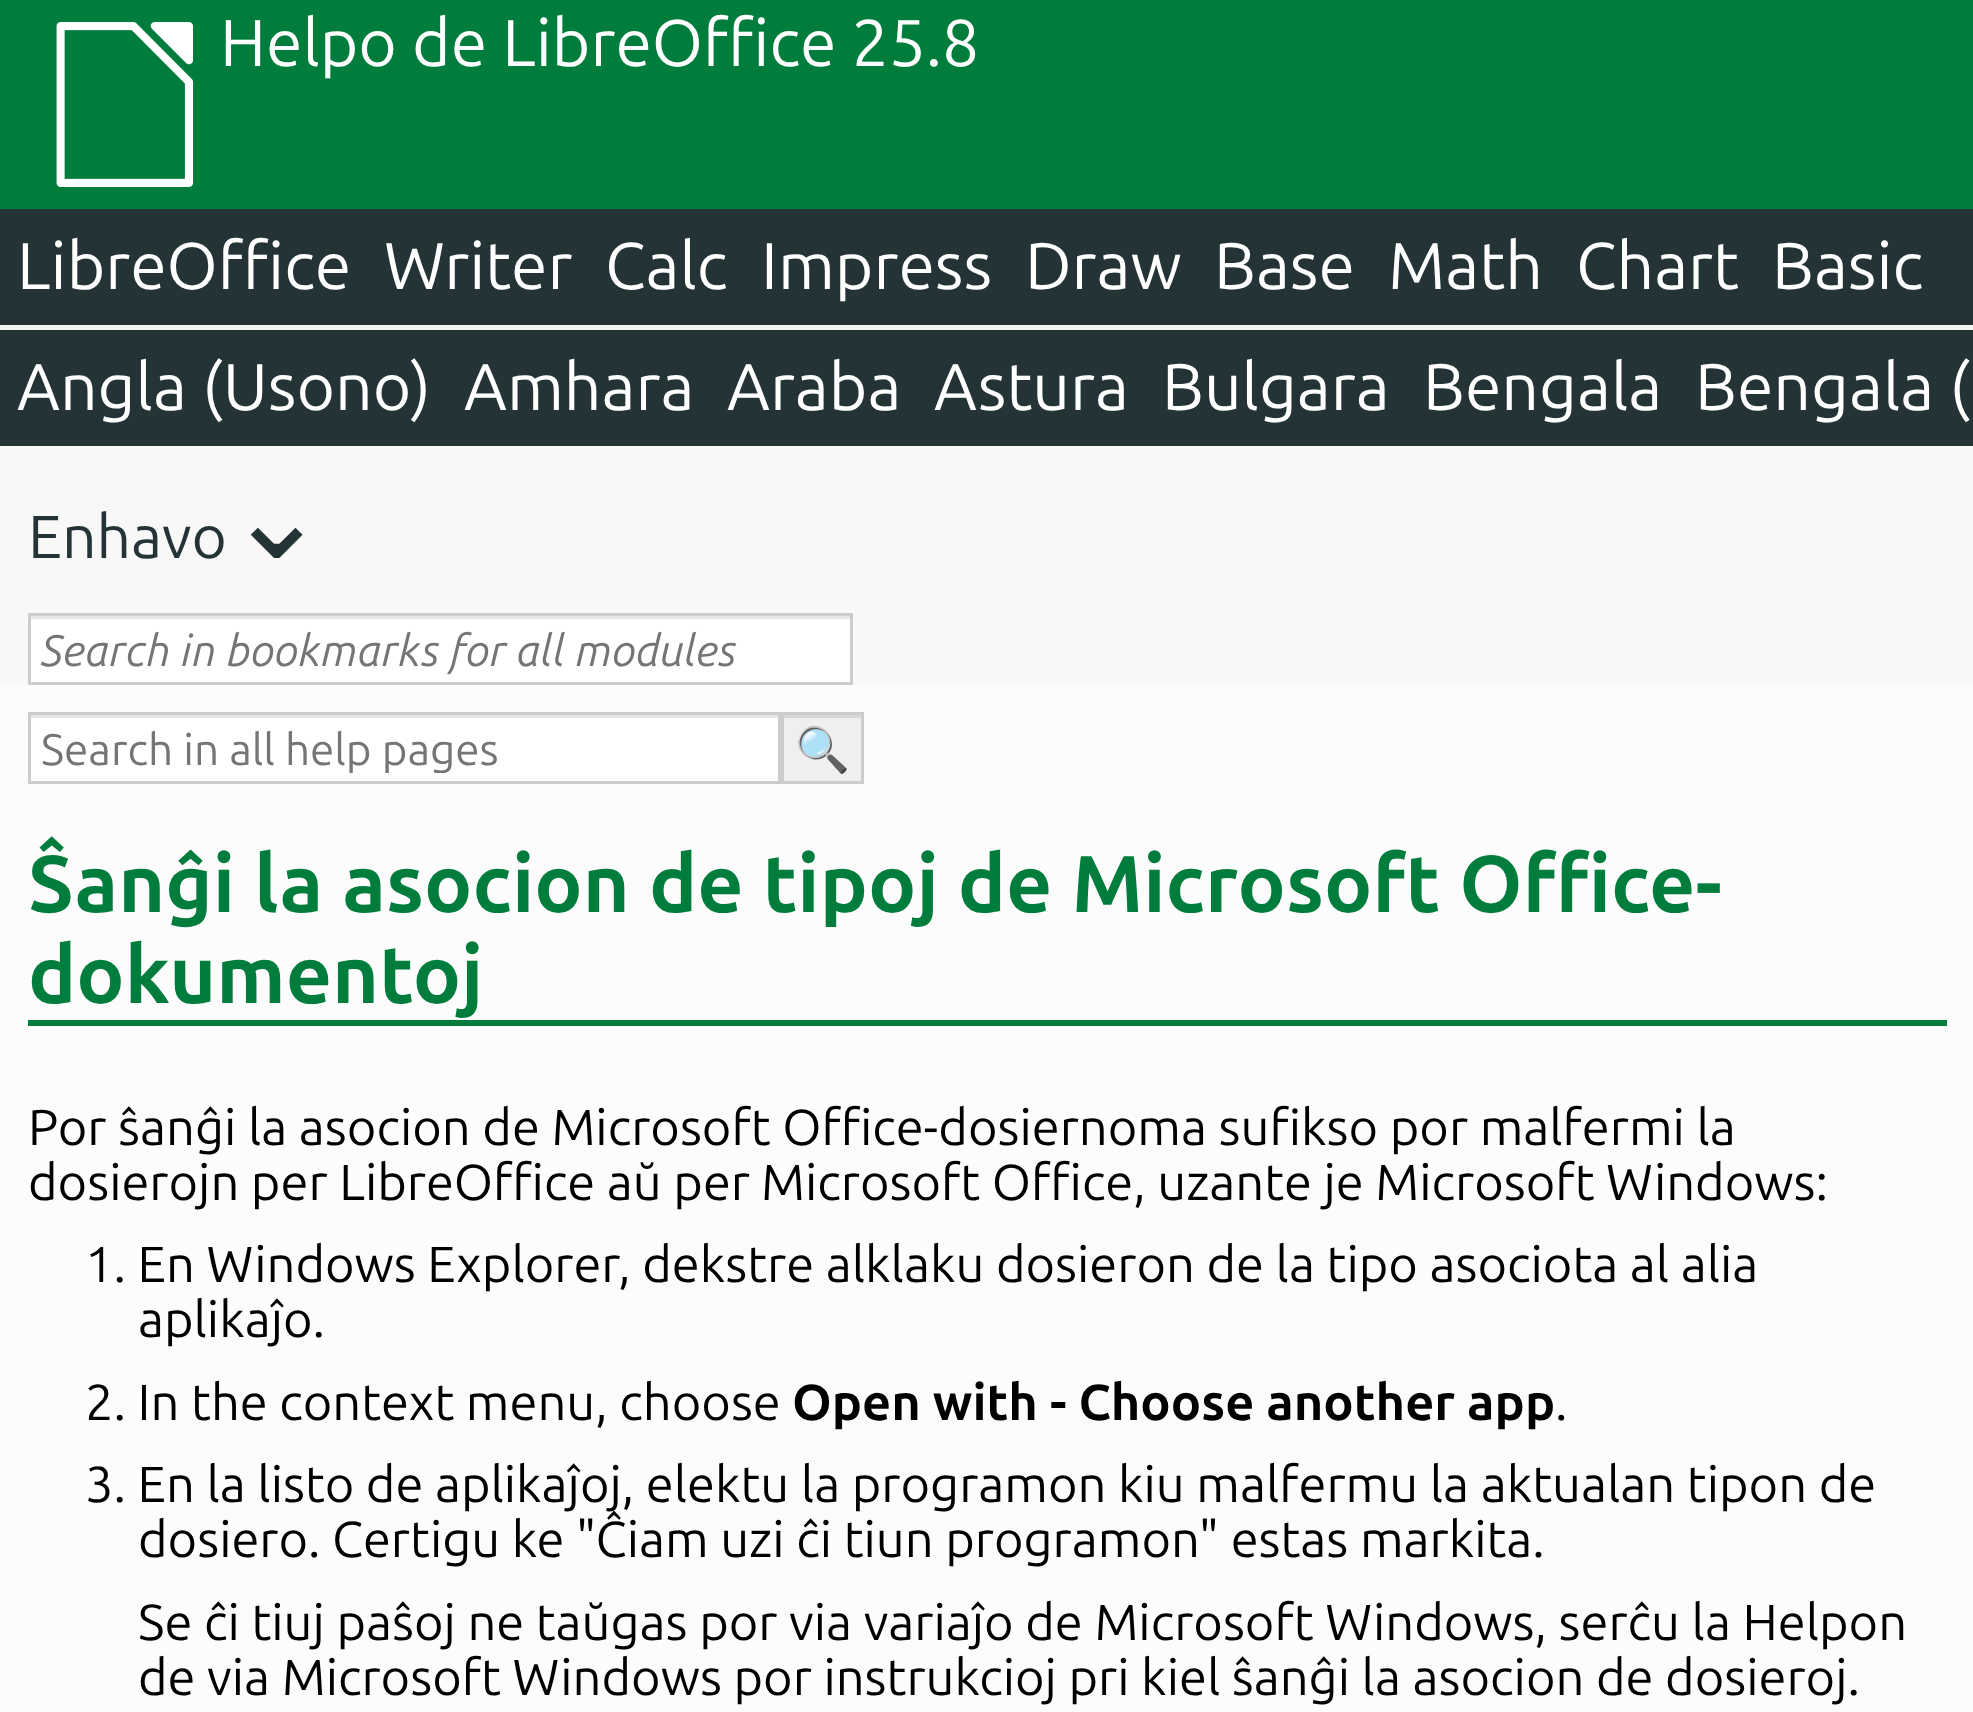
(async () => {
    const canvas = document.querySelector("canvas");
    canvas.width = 1973;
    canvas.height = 1712;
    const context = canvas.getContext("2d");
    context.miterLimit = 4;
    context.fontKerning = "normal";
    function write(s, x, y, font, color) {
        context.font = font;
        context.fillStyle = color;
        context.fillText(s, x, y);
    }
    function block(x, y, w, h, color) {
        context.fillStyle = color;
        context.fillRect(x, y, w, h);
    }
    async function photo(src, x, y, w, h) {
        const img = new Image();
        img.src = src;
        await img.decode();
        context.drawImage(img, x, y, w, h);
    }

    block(0, 0, 1973, 1712, "rgb(247, 248, 247)");
    block(0, 0, 1973, 209, "rgb(0, 124, 60)");
    await photo("media/1.png", 56, 22, 138, 165);
    write("Helpo de LibreOffice 25.8", 220, 66, "66px Ubuntu", "rgb(255, 255, 255)");
    block(0, 209, 1973, 116, "rgb(35, 51, 54)");
    block(0, 325, 1973, 5, "rgb(243, 243, 243)");
    write("LibreOffice", 17, 289, "66px Ubuntu", "rgb(255, 255, 255)");
    write("Writer", 384, 289, "66px Ubuntu", "rgb(255, 255, 255)");
    write("Calc", 605, 289, "66px Ubuntu", "rgb(255, 255, 255)");
    write("Impress", 761, 289, "66px Ubuntu", "rgb(255, 255, 255)");
    write("Draw", 1025, 289, "66px Ubuntu", "rgb(255, 255, 255)");
    write("Base", 1214, 289, "66px Ubuntu", "rgb(255, 255, 255)");
    write("Math", 1388, 289, "66px Ubuntu", "rgb(255, 255, 255)");
    write("Chart", 1576, 289, "66px Ubuntu", "rgb(255, 255, 255)");
    write("Basic", 1772, 289, "66px Ubuntu", "rgb(255, 255, 255)");
    block(0, 330, 1973, 116, "rgb(35, 51, 54)");
    write("Angla (Usono)", 17, 410, "66px Ubuntu", "rgb(255, 255, 255)");
    write("Amhara", 464, 410, "66px Ubuntu", "rgb(255, 255, 255)");
    write("Araba", 727, 410, "66px Ubuntu", "rgb(255, 255, 255)");
    write("Astura", 934, 410, "66px Ubuntu", "rgb(255, 255, 255)");
    write("Bulgara", 1162, 410, "66px Ubuntu", "rgb(255, 255, 255)");
    write("Bengala", 1423, 410, "66px Ubuntu", "rgb(255, 255, 255)");
    write("Bengala (", 1695, 410, "66px Ubuntu", "rgb(255, 255, 255)");
    write("Enhavo", 28, 558, "60.5px Ubuntu", "rgb(35, 51, 54)");
    write("⌄", 226, 558, "121px DejaVu Sans", "rgb(35, 51, 54)");
    block(31, 619, 819, 63, "rgb(255, 255, 255)");
    block(30, 616, 820, 3, "rgb(230, 230, 230)");
    context.strokeStyle = "rgb(204, 204, 204)";
    context.lineWidth = 3;
    context.strokeRect(29.5, 614.5, 822, 69);
    write("Search in bookmarks for all modules", 41, 666, "italic 44px Ubuntu", "rgb(117, 117, 117)");
    block(0, 685, 1973, 1027, "rgb(252, 252, 252)");
    block(31, 718, 747, 63, "rgb(255, 255, 255)");
    block(30, 715, 748, 3, "rgb(230, 230, 230)");
    context.strokeRect(29.5, 713.5, 750, 69);
    context.save();
    context.beginPath();
    context.rect(41, 723, 685, 50);
    context.clip();
    write("Search in all help pages", 41, 765, "44px Ubuntu", "rgb(117, 117, 117)");
    context.restore();
    block(784, 718, 77, 63, "rgb(239, 239, 239)");
    block(784, 715, 77, 3, "rgb(215, 215, 215)");
    context.strokeRect(782.5, 713.5, 80, 69);
    write("🔍", 795, 765, "44px Noto Color Emoji", "rgb(0, 0, 0)");
    block(28, 1020, 1919, 6, "rgb(0, 124, 60)");
    write("Ŝanĝi la asocion de tipoj de Microsoft Office-", 28, 912, "bold 80.5px Ubuntu", "rgb(0, 124, 60)");
    write("dokumentoj", 28, 1003, "bold 80.5px Ubuntu", "rgb(0, 124, 60)");
    write("Por ŝanĝi la asocion de Microsoft Office-dosiernoma sufikso por malfermi la", 28, 1145, "50.6px Ubuntu", "rgb(0, 0, 0)");
    write("dosierojn per LibreOffice aŭ per", 28, 1200, "50.6px Ubuntu", "rgb(0, 0, 0)");
    write("Microsoft Office, uzante je Microsoft Windows:", 761, 1200, "50.6px Ubuntu", "rgb(0, 0, 0)");
    write("1. En Windows Explorer, dekstre alklaku dosieron de la tipo asociota al alia", 85, 1282, "50.6px Ubuntu", "rgb(0, 0, 0)");
    write("aplikaĵo.", 138, 1337, "50.6px Ubuntu", "rgb(0, 0, 0)");
    write("2. In the context menu, choose", 85, 1420, "50.6px Ubuntu", "rgb(0, 0, 0)");
    write("Open with - Choose another app", 792, 1420, "bold 50.6px Ubuntu", "rgb(0, 0, 0)");
    write(".", 1555, 1420, "50.6px Ubuntu", "rgb(0, 0, 0)");
    write("3. En la listo de aplikaĵoj, elektu la programon kiu malfermu la aktualan tipon de", 85, 1502, "50.6px Ubuntu", "rgb(0, 0, 0)");
    write("dosiero. Certigu ke \"Ĉiam uzi ĉi tiun programon\" estas markita.", 138, 1557, "50.6px Ubuntu", "rgb(0, 0, 0)");
    write("Se ĉi tiuj paŝoj ne taŭgas por via variaĵo de Microsoft Windows, serĉu la Helpon", 138, 1640, "50.6px Ubuntu", "rgb(0, 0, 0)");
    write("de via Microsoft Windows por instrukcioj pri kiel ŝanĝi la asocion de dosieroj.", 138, 1695, "50.6px Ubuntu", "rgb(0, 0, 0)");
})();
